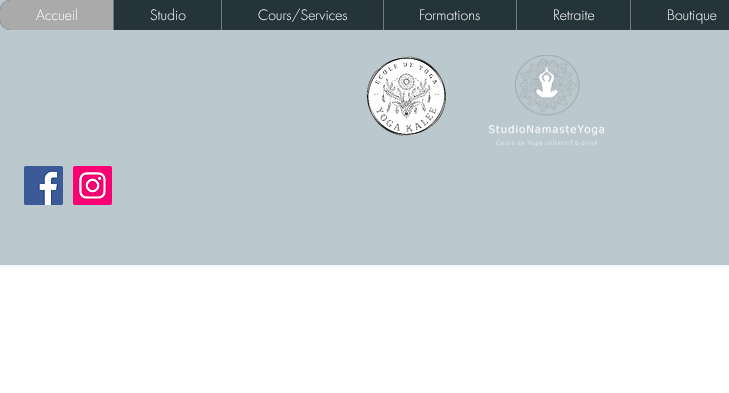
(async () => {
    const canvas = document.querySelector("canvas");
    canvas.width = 729;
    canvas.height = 393;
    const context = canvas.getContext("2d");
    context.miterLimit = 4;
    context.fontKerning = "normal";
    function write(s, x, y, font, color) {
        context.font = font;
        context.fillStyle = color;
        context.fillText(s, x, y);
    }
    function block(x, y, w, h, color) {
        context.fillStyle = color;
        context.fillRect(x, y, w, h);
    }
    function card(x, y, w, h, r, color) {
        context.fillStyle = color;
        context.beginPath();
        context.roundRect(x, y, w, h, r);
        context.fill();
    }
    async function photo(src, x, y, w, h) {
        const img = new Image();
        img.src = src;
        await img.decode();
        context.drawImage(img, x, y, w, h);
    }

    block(0, 0, 729, 393, "rgb(187, 201, 206)");
    card(0, 0, 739, 30, 10, "rgb(37, 52, 57)");
    context.fillStyle = "rgb(170, 170, 170)";
    context.beginPath();
    context.roundRect(0, 0, 113, 30, [10, 0, 0, 10]);
    context.fill();
    write("Accueil", 36, 20, "300 14px futura", "rgb(255, 255, 255)");
    block(113, 0, 1, 30, "rgb(113, 123, 126)");
    write("Studio", 150, 20, "300 14px futura", "rgb(255, 255, 255)");
    block(221, 0, 1, 30, "rgb(113, 123, 126)");
    write("Cours/Services", 258, 20, "300 14px futura", "rgb(255, 255, 255)");
    block(383, 0, 1, 30, "rgb(113, 123, 126)");
    write("Formations", 419, 20, "300 14px futura", "rgb(255, 255, 255)");
    block(516, 0, 1, 30, "rgb(113, 123, 126)");
    write("Retraite", 553, 20, "300 14px futura", "rgb(255, 255, 255)");
    block(630, 0, 1, 30, "rgb(113, 123, 126)");
    write("Boutique", 667, 20, "300 14px futura", "rgb(255, 255, 255)");
    await photo("media/1.png", 366, 56, 80, 80);
    await photo("media/2.png", 489, 55, 115, 91);
    await photo("media/3.png", 24, 166, 39, 39);
    await photo("media/4.png", 73, 166, 39, 39);
    block(0, 265, 729, 2, "rgb(245, 247, 248)");
    block(0, 267, 729, 126, "rgb(255, 255, 255)");
})();
